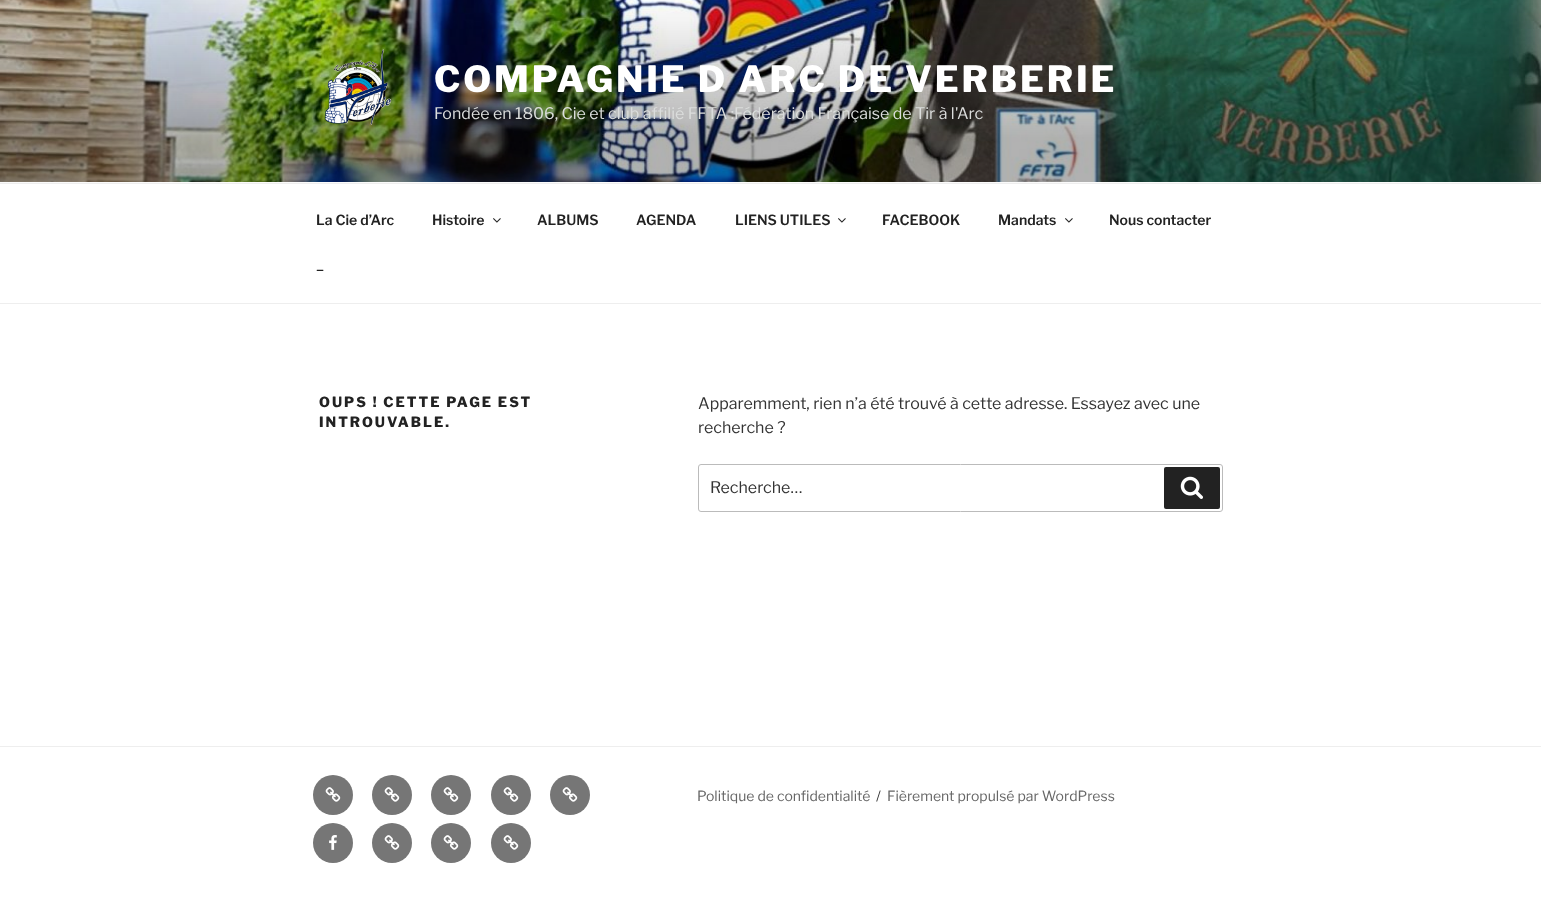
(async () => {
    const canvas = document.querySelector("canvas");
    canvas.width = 1541;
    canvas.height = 915;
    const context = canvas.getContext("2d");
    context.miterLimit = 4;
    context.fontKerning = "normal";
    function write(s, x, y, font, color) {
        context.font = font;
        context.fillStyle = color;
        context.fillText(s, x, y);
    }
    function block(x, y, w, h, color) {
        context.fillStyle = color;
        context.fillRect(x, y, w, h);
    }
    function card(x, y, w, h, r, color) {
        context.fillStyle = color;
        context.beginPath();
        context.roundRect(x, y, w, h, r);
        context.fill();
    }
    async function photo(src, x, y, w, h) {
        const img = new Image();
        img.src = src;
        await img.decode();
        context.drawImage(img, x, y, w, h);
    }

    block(0, 0, 1541, 915, "rgb(255, 255, 255)");
    block(0, 182, 1541, 1, "rgb(250, 250, 250)");
    await photo("media/1.png", 0, 0, 1541, 182);
    await photo("media/2.png", 324, 49, 68, 76);
    context.letterSpacing = "2.9px";
    write("COMPAGNIE D ARC DE VERBERIE", 434, 92, "100 36px Libre Franklin", "rgb(255, 255, 255)");
    context.letterSpacing = "0px";
    write("Fondée en 1806, Cie et club affilié FFTA :Fédération Française de Tir à l'Arc", 434, 119, "100 16px 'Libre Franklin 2'", "rgb(219, 221, 220)");
    block(0, 183, 1541, 1, "rgb(238, 238, 238)");
    block(0, 303, 1541, 1, "rgb(238, 238, 238)");
    write("La Cie d’Arc", 316, 225, "100 14px 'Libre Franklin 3'", "rgb(34, 34, 34)");
    write("Histoire", 432, 225, "100 14px 'Libre Franklin 3'", "rgb(34, 34, 34)");
    await photo("media/3.png", 493, 218, 8, 5);
    write("ALBUMS", 537, 225, "100 14px 'Libre Franklin 3'", "rgb(34, 34, 34)");
    write("AGENDA", 636, 225, "100 14px 'Libre Franklin 3'", "rgb(34, 34, 34)");
    write("LIENS UTILES", 735, 225, "100 14px 'Libre Franklin 3'", "rgb(34, 34, 34)");
    await photo("media/3.png", 838, 218, 8, 5);
    write("FACEBOOK", 882, 225, "100 14px 'Libre Franklin 3'", "rgb(34, 34, 34)");
    write("Mandats", 998, 225, "100 14px 'Libre Franklin 3'", "rgb(34, 34, 34)");
    await photo("media/3.png", 1065, 218, 8, 5);
    write("Nous contacter", 1109, 225, "100 14px 'Libre Franklin 3'", "rgb(34, 34, 34)");
    write("–", 316, 274, "100 14px 'Libre Franklin 3'", "rgb(34, 34, 34)");
    context.letterSpacing = "2px";
    write("OUPS ! CETTE PAGE EST", 319, 407, "100 14px Libre Franklin", "rgb(34, 34, 34)");
    write("INTROUVABLE.", 319, 427, "100 14px Libre Franklin", "rgb(34, 34, 34)");
    context.letterSpacing = "0px";
    write("Apparemment, rien n’a été trouvé à cette adresse. Essayez avec une", 698, 409, "100 16px 'Libre Franklin 2'", "rgb(51, 51, 51)");
    write("recherche ?", 698, 433, "100 16px 'Libre Franklin 2'", "rgb(51, 51, 51)");
    context.beginPath();
    context.roundRect(698.5, 464.5, 524, 47, 2.5);
    context.strokeStyle = "rgb(187, 187, 187)";
    context.stroke();
    write("Recherche…", 710, 493, "100 16px 'Libre Franklin 2'", "rgb(51, 51, 51)");
    card(1164, 467, 56, 42, 2, "rgb(34, 34, 34)");
    await photo("media/4.png", 1180, 476, 23, 23);
    block(0, 746, 1541, 1, "rgb(238, 238, 238)");
    context.fillStyle = "rgb(118, 118, 118)";
    context.beginPath();
    context.arc(333, 795, 20, 0, Math.PI * 2);
    context.fill();
    await photo("media/5.png", 325, 787, 16, 15);
    context.beginPath();
    context.arc(392, 795, 20, 0, Math.PI * 2);
    context.fill();
    await photo("media/5.png", 384, 787, 16, 15);
    context.beginPath();
    context.arc(451, 795, 20, 0, Math.PI * 2);
    context.fill();
    await photo("media/5.png", 443, 787, 16, 15);
    context.beginPath();
    context.arc(511, 795, 20, 0, Math.PI * 2);
    context.fill();
    await photo("media/5.png", 503, 787, 16, 15);
    context.beginPath();
    context.arc(570, 795, 20, 0, Math.PI * 2);
    context.fill();
    await photo("media/5.png", 562, 787, 16, 15);
    context.beginPath();
    context.arc(333, 843, 20, 0, Math.PI * 2);
    context.fill();
    await photo("media/6.png", 329, 835, 8, 15);
    context.beginPath();
    context.arc(392, 843, 20, 0, Math.PI * 2);
    context.fill();
    await photo("media/5.png", 384, 835, 16, 15);
    context.beginPath();
    context.arc(451, 843, 20, 0, Math.PI * 2);
    context.fill();
    await photo("media/5.png", 443, 835, 16, 15);
    context.beginPath();
    context.arc(511, 843, 20, 0, Math.PI * 2);
    context.fill();
    await photo("media/5.png", 503, 835, 16, 15);
    write("Politique de confidentialité", 697, 801, "100 14px 'Libre Franklin 2'", "rgb(102, 102, 102)");
    write("/", 876, 801, "100 14px 'Libre Franklin 2'", "rgb(51, 51, 51)");
    write("Fièrement propulsé par WordPress", 887, 801, "100 14px 'Libre Franklin 2'", "rgb(102, 102, 102)");
})();
